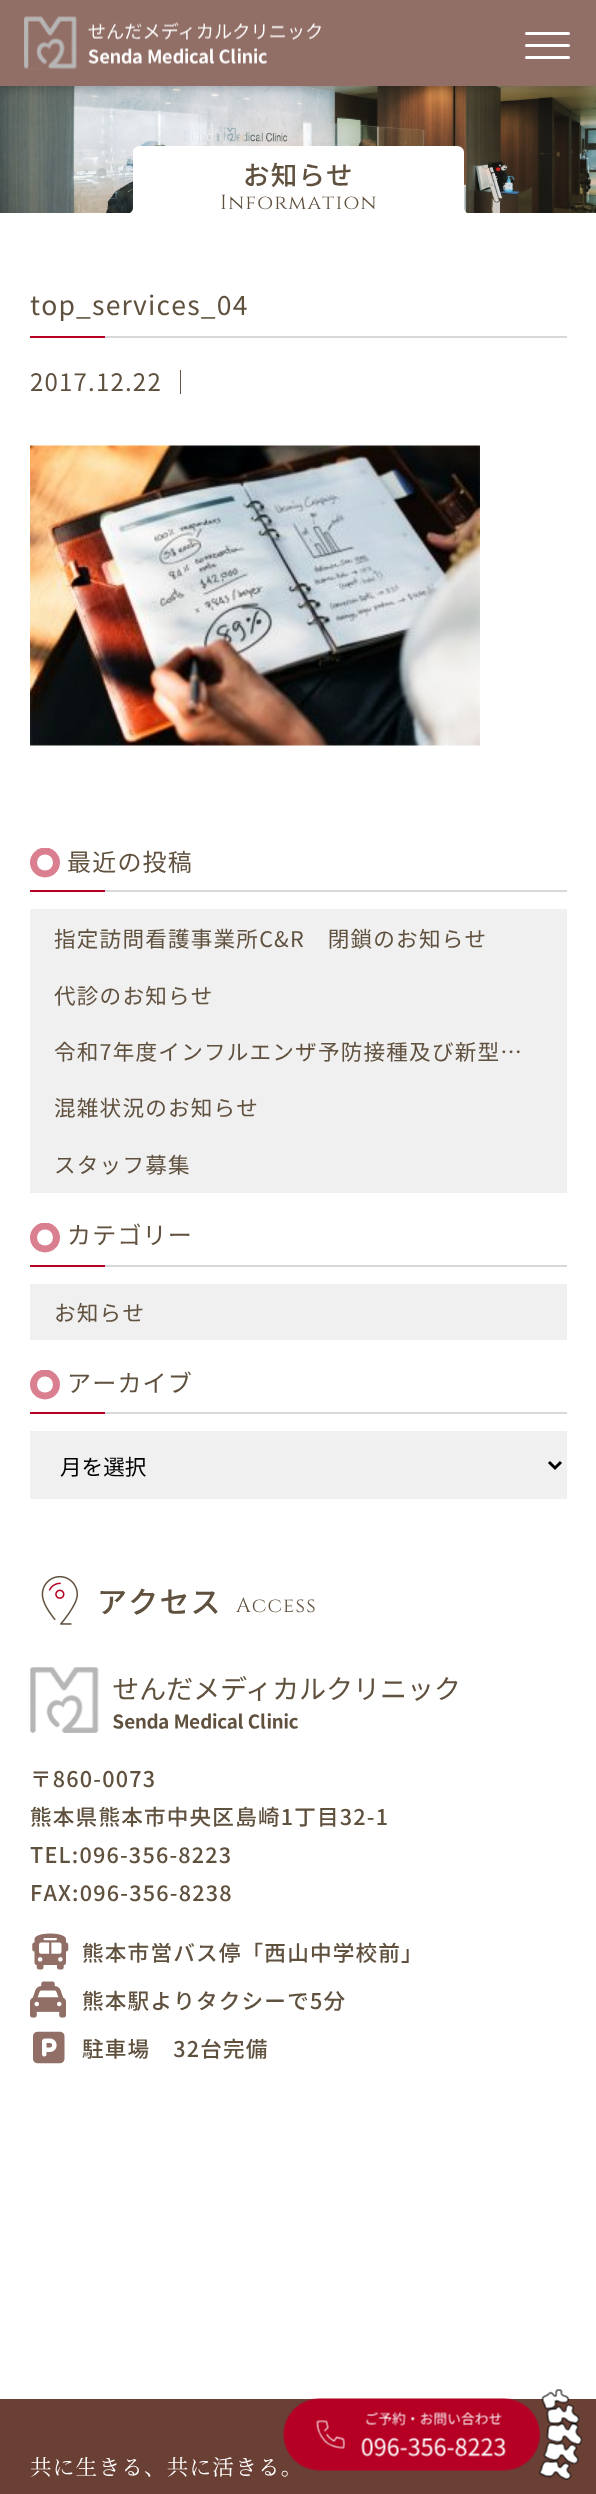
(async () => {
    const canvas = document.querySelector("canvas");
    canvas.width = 596;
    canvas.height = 2494;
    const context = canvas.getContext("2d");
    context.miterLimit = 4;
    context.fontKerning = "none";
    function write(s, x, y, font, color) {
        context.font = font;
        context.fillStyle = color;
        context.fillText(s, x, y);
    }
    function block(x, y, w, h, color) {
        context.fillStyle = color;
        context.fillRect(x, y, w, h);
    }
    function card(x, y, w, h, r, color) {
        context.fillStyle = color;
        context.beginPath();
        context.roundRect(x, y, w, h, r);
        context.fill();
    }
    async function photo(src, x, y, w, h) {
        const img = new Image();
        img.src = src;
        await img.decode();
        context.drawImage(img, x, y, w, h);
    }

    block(0, 0, 596, 2494, "rgb(255, 255, 255)");
    await photo("media/2.png", 0, 86, 596, 127);
    context.fillStyle = "rgba(0, 0, 0, 0.3)";
    context.filter = "blur(6px)";
    context.beginPath();
    context.rect(0, 0, 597, 86);
    context.fill();
    context.filter = "none";
    block(0, 0, 596, 86, "rgb(146, 111, 102)");
    await photo("media/1.png", 24, 16, 297, 54);
    card(525, 32, 45, 3, 1.5, "rgb(255, 255, 255)");
    card(525, 44, 45, 3, 1.5, "rgb(255, 255, 255)");
    card(525, 56, 45, 3, 1.5, "rgb(255, 255, 255)");
    context.beginPath();
    context.moveTo(140, 146);
    context.lineTo(457, 146);
    context.bezierCurveTo(461, 146, 464, 149, 464, 152);
    context.lineTo(464, 208);
    context.bezierCurveTo(464, 211, 467, 214, 471, 214);
    context.lineTo(126, 214);
    context.bezierCurveTo(130, 214, 133, 211, 133, 208);
    context.lineTo(133, 152);
    context.bezierCurveTo(133, 149, 136, 146, 140, 146);
    context.closePath();
    context.fill();
    context.letterSpacing = "1.2px";
    write("お知らせ", 243, 185, "500 26.5px Noto Sans JP", "rgb(96, 81, 63)");
    write("Information", 220, 209, "20.5px Cinzel", "rgb(96, 81, 63)");
    block(105, 336, 462, 2, "rgb(217, 217, 217)");
    write("top_services_04", 30, 315, "26.5px Noto Sans JP", "rgb(96, 81, 63)");
    block(30, 336, 75, 2, "rgb(181, 0, 35)");
    write("2017.12.22 │", 30, 391, "24px Noto Sans JP", "rgb(96, 81, 63)");
    await photo("media/3.png", 30, 445, 450, 301);
    context.save();
    context.beginPath();
    context.rect(30, 848, 30, 30);
    context.clip();
    context.fillStyle = "rgb(218, 127, 144)";
    context.beginPath();
    context.arc(45, 862.5, 15, 0, Math.PI * 2);
    context.fill();
    context.restore();
    context.fillStyle = "rgb(255, 255, 255)";
    context.beginPath();
    context.arc(45, 862.5, 8, 0, Math.PI * 2);
    context.fill();
    block(105, 890, 462, 2, "rgb(217, 217, 217)");
    write("最近の投稿", 67, 871, "24px Noto Sans JP", "rgb(96, 81, 63)");
    block(30, 890, 75, 2, "rgb(181, 0, 35)");
    block(30, 909, 537, 284, "rgb(240, 240, 240)");
    write("指定訪問看護事業所C&R　閉鎖のお知らせ", 54, 947, "21.6px Noto Sans JP", "rgb(96, 81, 63)");
    write("代診のお知らせ", 54, 1004, "21.6px Noto Sans JP", "rgb(96, 81, 63)");
    write("令和7年度インフルエンザ予防接種及び新型…", 54, 1060, "21.6px Noto Sans JP", "rgb(96, 81, 63)");
    write("混雑状況のお知らせ", 54, 1116, "21.6px Noto Sans JP", "rgb(96, 81, 63)");
    write("スタッフ募集", 54, 1173, "21.6px Noto Sans JP", "rgb(96, 81, 63)");
    context.save();
    context.beginPath();
    context.rect(30, 1223, 30, 30);
    context.clip();
    context.fillStyle = "rgb(218, 127, 144)";
    context.beginPath();
    context.arc(45, 1237.5, 15, 0, Math.PI * 2);
    context.fill();
    context.restore();
    context.fillStyle = "rgb(255, 255, 255)";
    context.beginPath();
    context.arc(45, 1237.5, 8, 0, Math.PI * 2);
    context.fill();
    block(105, 1265, 462, 2, "rgb(217, 217, 217)");
    write("カテゴリー", 67, 1244, "24px Noto Sans JP", "rgb(96, 81, 63)");
    block(30, 1265, 75, 2, "rgb(181, 0, 35)");
    block(30, 1284, 537, 56, "rgb(240, 240, 240)");
    write("お知らせ", 54, 1321, "21.6px Noto Sans JP", "rgb(96, 81, 63)");
    context.save();
    context.beginPath();
    context.rect(30, 1370, 30, 30);
    context.clip();
    context.fillStyle = "rgb(218, 127, 144)";
    context.beginPath();
    context.arc(45, 1384.5, 15, 0, Math.PI * 2);
    context.fill();
    context.restore();
    context.fillStyle = "rgb(255, 255, 255)";
    context.beginPath();
    context.arc(45, 1384.5, 8, 0, Math.PI * 2);
    context.fill();
    block(105, 1412, 462, 2, "rgb(217, 217, 217)");
    write("アーカイブ", 67, 1392, "24px Noto Sans JP", "rgb(96, 81, 63)");
    block(30, 1412, 75, 2, "rgb(181, 0, 35)");
    block(30, 1431, 537, 68, "rgb(240, 240, 240)");
    context.beginPath();
    context.moveTo(549, 1462);
    context.lineTo(555, 1468);
    context.lineTo(561, 1462);
    context.strokeStyle = "rgb(0, 0, 0)";
    context.lineWidth = 3;
    context.stroke();
    context.letterSpacing = "0px";
    write("月を選択", 60, 1475, "21.6px Noto Sans JP", "rgb(0, 0, 0)");
    block(0, 2399, 596, 95, "rgb(106, 64, 53)");
    context.letterSpacing = "1.2px";
    write("共に生きる、共に活きる。", 30, 2475, "21.6px Noto Serif JP", "rgb(255, 255, 255)");
    await photo("media/4.png", 283, 2389, 300, 91);
    await photo("media/5.png", 41, 1575, 37, 50);
    write("アクセス", 97, 1613, "500 30px Noto Sans JP", "rgb(96, 81, 63)");
    write("Access", 236, 1612, "20.5px Cinzel", "rgb(96, 81, 63)");
    await photo("media/6.png", 30, 1667, 428, 66);
    write("〒860-0073", 30, 1787, "500 21.6px Noto Sans JP", "rgb(96, 81, 63)");
    write("熊本県熊本市中央区島崎1丁目32-1", 30, 1825, "500 21.6px Noto Sans JP", "rgb(96, 81, 63)");
    write("TEL:096-356-8223", 30, 1863, "500 21.6px Noto Sans JP", "rgb(96, 81, 63)");
    write("FAX:096-356-8238", 30, 1901, "500 21.6px Noto Sans JP", "rgb(96, 81, 63)");
    await photo("media/7.png", 32, 1933, 37, 37);
    write("熊本市営バス停「西山中学校前」", 82, 1961, "500 21.6px Noto Sans JP", "rgb(96, 81, 63)");
    await photo("media/8.png", 30, 1981, 36, 37);
    write("熊本駅よりタクシーで5分", 82, 2009, "500 21.6px Noto Sans JP", "rgb(96, 81, 63)");
    await photo("media/9.png", 33, 2031, 32, 33);
    write("駐車場　32台完備", 82, 2057, "500 21.6px Noto Sans JP", "rgb(96, 81, 63)");
})();
